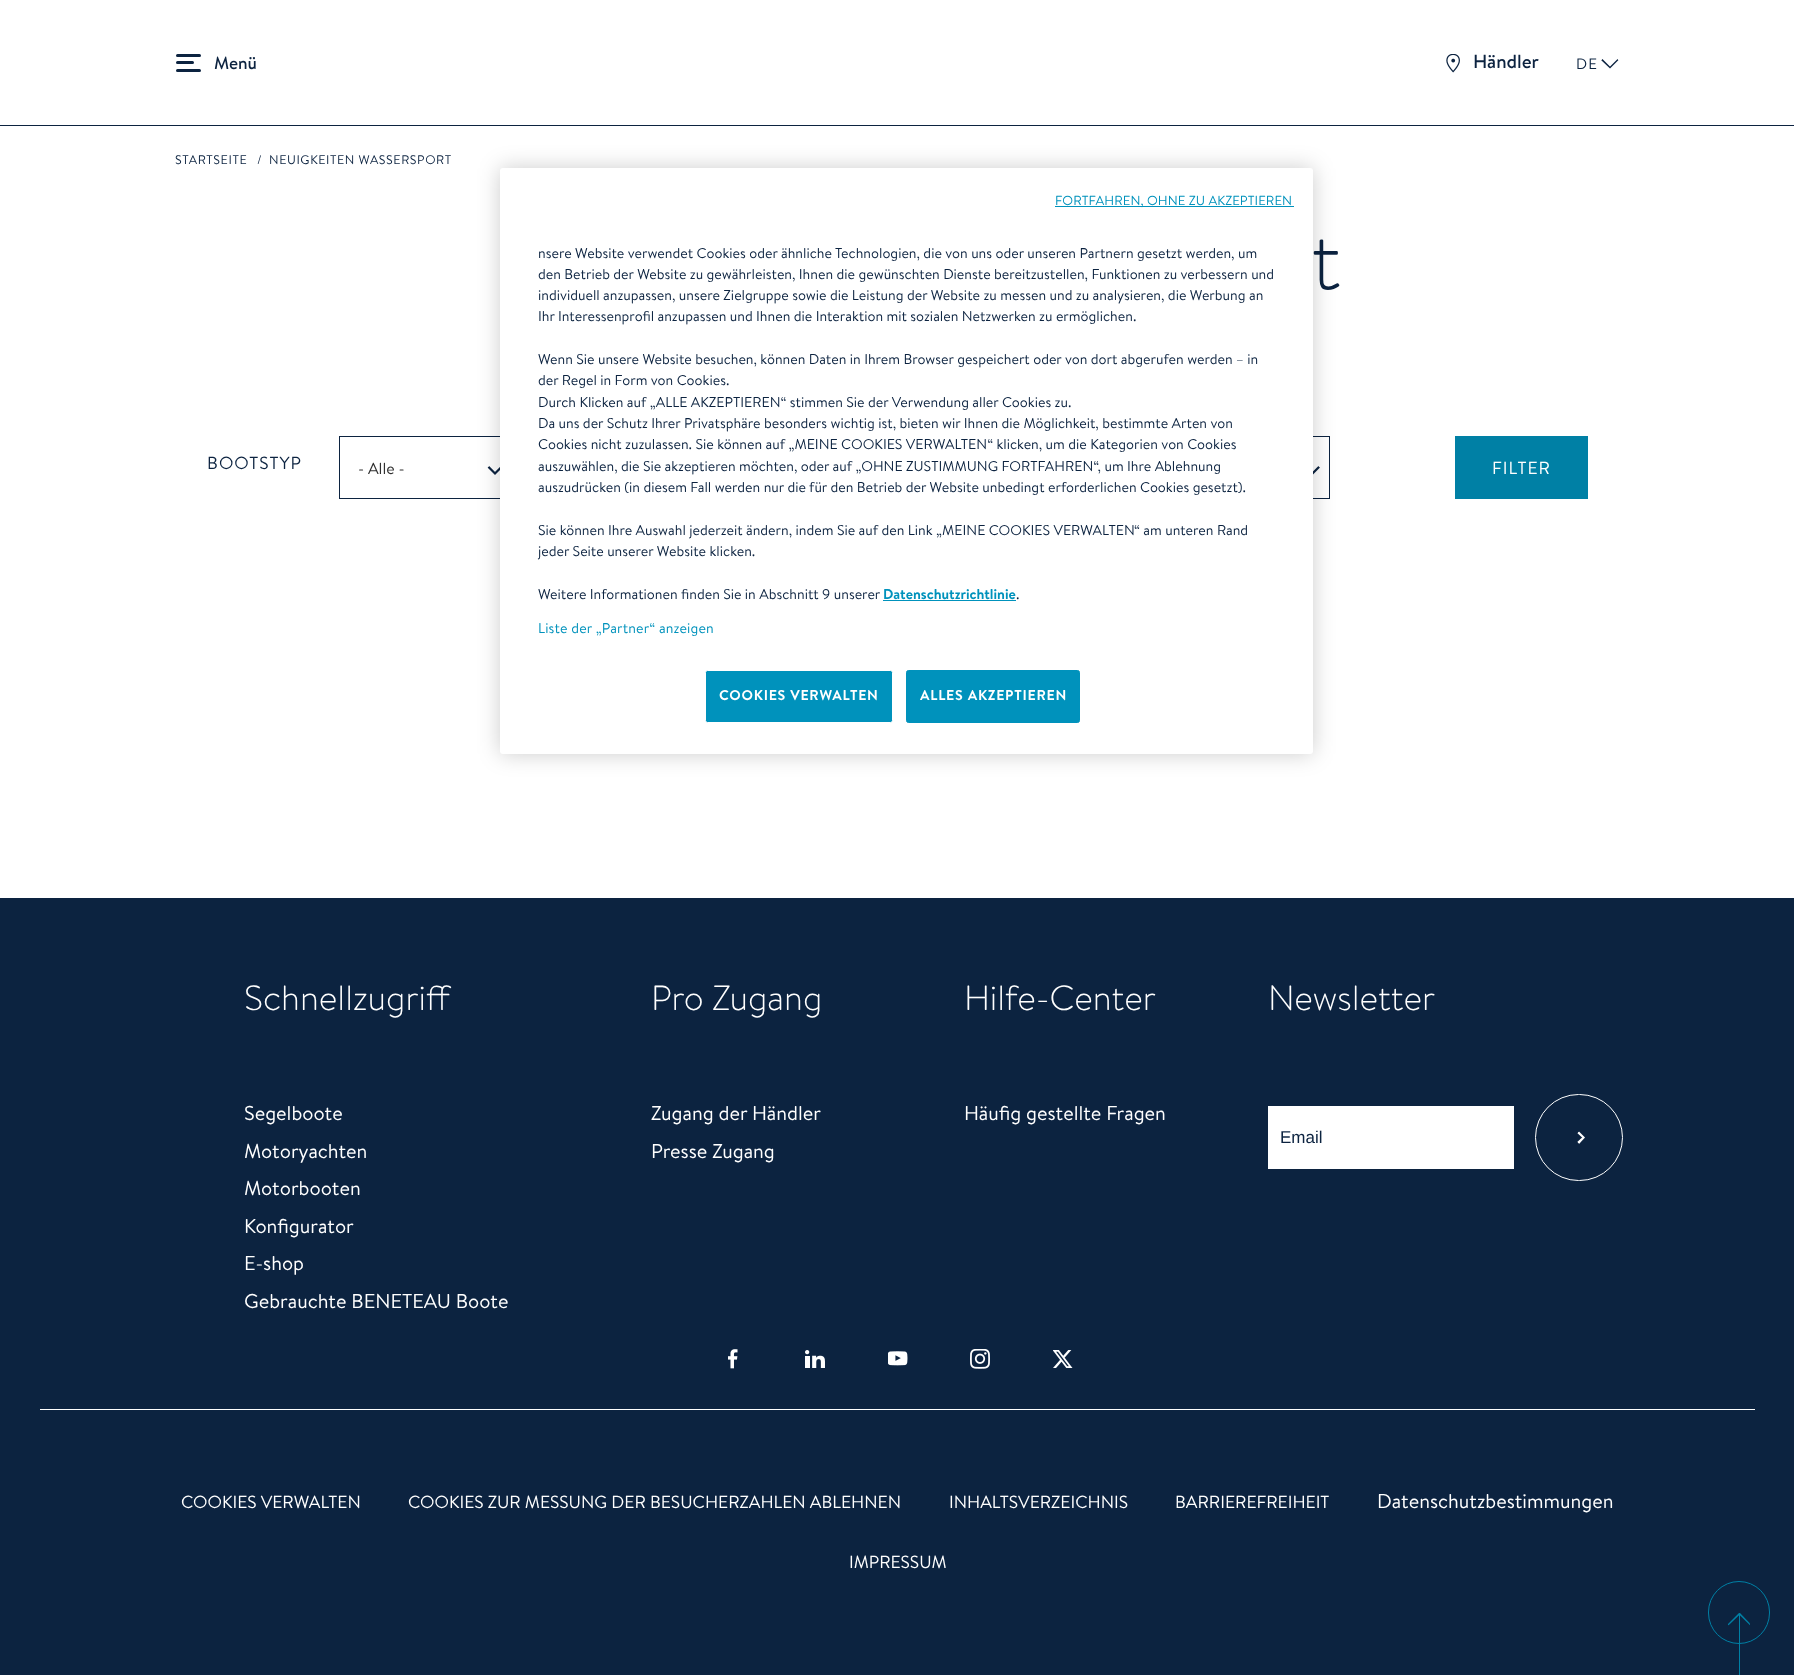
(async () => {
    const canvas = document.querySelector("canvas");
    canvas.width = 1794;
    canvas.height = 1675;
    const context = canvas.getContext("2d");
    context.miterLimit = 4;
    context.fontKerning = "normal";
    function write(s, x, y, font, color) {
        context.font = font;
        context.fillStyle = color;
        context.fillText(s, x, y);
    }
    function block(x, y, w, h, color) {
        context.fillStyle = color;
        context.fillRect(x, y, w, h);
    }
    function card(x, y, w, h, r, color) {
        context.fillStyle = color;
        context.beginPath();
        context.roundRect(x, y, w, h, r);
        context.fill();
    }
    async function photo(src, x, y, w, h) {
        const img = new Image();
        img.src = src;
        await img.decode();
        context.drawImage(img, x, y, w, h);
    }

    block(0, 0, 1794, 1675, "rgb(255, 255, 255)");
    block(0, 125, 1794, 1, "rgb(12, 35, 64)");
    card(176, 54, 25, 3, 1.5, "rgb(12, 35, 64)");
    card(176, 61, 18, 3, 1.5, "rgb(12, 35, 64)");
    write("Menü", 214, 69, "500 17.5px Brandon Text", "rgb(12, 35, 64)");
    card(176, 69, 25, 3, 1.5, "rgb(12, 35, 64)");
    await photo("media/1.png", 1446, 54, 14, 19);
    write("Händler", 1473, 68, "500 19px Brandon Text", "rgb(12, 35, 64)");
    context.letterSpacing = "1px";
    write("DE", 1576, 69, "15px Brandon Text", "rgb(12, 35, 64)");
    context.save();
    context.beginPath();
    context.moveTo(1601, 60);
    context.lineTo(1610, 51.5);
    context.lineTo(1618.5, 60);
    context.lineTo(1610, 68.5);
    context.closePath();
    context.clip();
    context.beginPath();
    context.moveTo(1618.5, 60);
    context.lineTo(1610, 68.5);
    context.lineTo(1601.5, 60);
    context.strokeStyle = "rgb(12, 35, 64)";
    context.lineWidth = 2.6;
    context.stroke();
    context.restore();
    context.letterSpacing = "0.6px";
    write("STARTSEITE", 175, 164, "12.5px Brandon Text", "rgb(12, 35, 64)");
    write("/", 257, 164, "12.5px Brandon Text", "rgb(12, 35, 64)");
    write("NEUIGKEITEN WASSERSPORT", 269, 164, "12.5px Brandon Text", "rgb(12, 35, 64)");
    context.letterSpacing = "0px";
    write("t", 1311, 289, "300 82px Brandon Text", "rgb(12, 35, 64)");
    context.letterSpacing = "1px";
    write("BOOTSTYP", 207, 469, "17.5px Brandon Text", "rgb(12, 35, 64)");
    context.save();
    context.beginPath();
    context.moveTo(487.5, 467.5);
    context.lineTo(495, 460);
    context.lineTo(502.5, 467.5);
    context.lineTo(495, 475);
    context.closePath();
    context.clip();
    context.beginPath();
    context.moveTo(502.5, 467.5);
    context.lineTo(495, 475);
    context.lineTo(487.5, 467.5);
    context.strokeStyle = "rgb(12, 35, 64)";
    context.lineWidth = 4.5;
    context.stroke();
    context.restore();
    context.strokeStyle = "rgb(12, 35, 64)";
    context.strokeRect(339.5, 436.5, 173, 62);
    context.letterSpacing = "0px";
    write("- Alle -", 358, 474, "16px Brandon Text", "rgb(48, 48, 48)");
    context.save();
    context.beginPath();
    context.moveTo(1305, 467.5);
    context.lineTo(1312.5, 460);
    context.lineTo(1320, 467.5);
    context.lineTo(1312.5, 475);
    context.closePath();
    context.clip();
    context.beginPath();
    context.moveTo(1320, 467.5);
    context.lineTo(1312.5, 475);
    context.lineTo(1305, 467.5);
    context.lineWidth = 4.5;
    context.stroke();
    context.restore();
    context.strokeRect(1156.5, 436.5, 173, 62);
    block(1455, 436, 133, 63, "rgb(0, 128, 165)");
    context.letterSpacing = "1px";
    write("FILTER", 1492, 474, "17.5px Brandon Text", "rgb(255, 255, 255)");
    block(0, 898, 1794, 777, "rgb(12, 35, 64)");
    context.letterSpacing = "0px";
    write("Schnellzugriff", 244, 1010, "300 35px Brandon Text", "rgb(255, 255, 255)");
    write("Segelboote", 244, 1120, "20px Brandon Text", "rgb(255, 255, 255)");
    write("Motoryachten", 244, 1158, "20px Brandon Text", "rgb(255, 255, 255)");
    write("Motorbooten", 244, 1195, "20px Brandon Text", "rgb(255, 255, 255)");
    write("Konfigurator", 244, 1233, "20px Brandon Text", "rgb(255, 255, 255)");
    write("E-shop", 244, 1270, "20px Brandon Text", "rgb(255, 255, 255)");
    write("Gebrauchte BENETEAU Boote", 244, 1308, "20px Brandon Text", "rgb(255, 255, 255)");
    write("Pro Zugang", 651, 1010, "300 35px Brandon Text", "rgb(255, 255, 255)");
    write("Zugang der Händler", 651, 1120, "20px Brandon Text", "rgb(255, 255, 255)");
    write("Presse Zugang", 651, 1158, "20px Brandon Text", "rgb(255, 255, 255)");
    write("Hilfe-Center", 964, 1010, "300 35px Brandon Text", "rgb(255, 255, 255)");
    write("Häufig gestellte Fragen", 964, 1120, "20px Brandon Text", "rgb(255, 255, 255)");
    write("Newsletter", 1268, 1010, "300 35px Brandon Text", "rgb(255, 255, 255)");
    block(1268, 1106, 246, 63, "rgb(255, 255, 255)");
    write("Email", 1280, 1143, "17px Liberation Sans", "rgb(12, 35, 64)");
    context.save();
    context.beginPath();
    context.moveTo(1579, 1144);
    context.lineTo(1572.5, 1137.5);
    context.lineTo(1579, 1131.5);
    context.lineTo(1585, 1137.5);
    context.closePath();
    context.clip();
    context.beginPath();
    context.moveTo(1578.5, 1131.5);
    context.lineTo(1585, 1137.5);
    context.lineTo(1578.5, 1143.5);
    context.strokeStyle = "rgb(255, 255, 255)";
    context.lineWidth = 3.8;
    context.stroke();
    context.restore();
    context.beginPath();
    context.roundRect(1535.5, 1094.5, 87, 86, 43);
    context.strokeStyle = "rgb(255, 255, 255)";
    context.stroke();
    await photo("media/2.png", 728, 1349, 10, 20);
    await photo("media/3.png", 805, 1350, 20, 18);
    await photo("media/4.png", 888, 1351, 20, 15);
    await photo("media/5.png", 970, 1349, 20, 20);
    await photo("media/6.png", 1053, 1350, 20, 18);
    block(40, 1409, 1715, 1, "rgb(255, 255, 255)");
    write("COOKIES VERWALTEN", 181, 1508, "17.5px Brandon Text", "rgb(255, 255, 255)");
    write("COOKIES ZUR MESSUNG DER BESUCHERZAHLEN ABLEHNEN", 408, 1508, "17.5px Brandon Text", "rgb(255, 255, 255)");
    write("INHALTSVERZEICHNIS", 949, 1508, "17.5px Brandon Text", "rgb(255, 255, 255)");
    write("BARRIEREFREIHEIT", 1175, 1508, "17.5px Brandon Text", "rgb(255, 255, 255)");
    write("Datenschutzbestimmungen", 1377, 1508, "20px Brandon Text", "rgb(255, 255, 255)");
    write("IMPRESSUM", 849, 1568, "17.5px Brandon Text", "rgb(255, 255, 255)");
    context.beginPath();
    context.roundRect(1708.5, 1581.5, 61, 62, 30.5);
    context.strokeStyle = "rgb(0, 128, 165)";
    context.stroke();
    context.save();
    context.beginPath();
    context.rect(1728, 1613, 22, 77);
    context.clip();
    context.beginPath();
    context.moveTo(1751, 1624.5);
    context.lineTo(1739.5, 1636.5);
    context.lineTo(1727.5, 1624.5);
    context.lineTo(1739.5, 1612.5);
    context.closePath();
    context.clip();
    context.beginPath();
    context.moveTo(1727.5, 1624.5);
    context.lineTo(1739.5, 1613);
    context.lineTo(1751, 1624.5);
    context.lineWidth = 2.5;
    context.stroke();
    context.restore();
    block(1739, 1614, 1, 61, "rgb(0, 128, 165)");
    context.fillStyle = "rgba(0, 0, 0, 0.2)";
    context.filter = "blur(11px)";
    context.beginPath();
    context.roundRect(500, 168, 813, 586, 3);
    context.fill();
    context.filter = "none";
    card(500, 168, 813, 586, 3, "rgb(255, 255, 255)");
    block(1055, 206, 239, 1, "rgb(0, 146, 188)");
    context.letterSpacing = "0.1px";
    write("FORTFAHREN, OHNE ZU AKZEPTIEREN", 1055, 205, "13.1px Brandon Text", "rgb(0, 146, 188)");
    context.letterSpacing = "0px";
    write("nsere Website verwendet Cookies oder ähnliche Technologien, die von uns oder unseren Partnern gesetzt werden, um", 538, 258, "14.23px Brandon Text", "rgb(12, 35, 64)");
    write("den Betrieb der Website zu gewährleisten, Ihnen die gewünschten Dienste bereitzustellen, Funktionen zu verbessern und", 538, 279, "14.23px Brandon Text", "rgb(12, 35, 64)");
    write("individuell anzupassen, unsere Zielgruppe sowie die Leistung der Website zu messen und zu analysieren, die Werbung an", 538, 300, "14.23px Brandon Text", "rgb(12, 35, 64)");
    write("Ihr Interessenprofil anzupassen und Ihnen die Interaktion mit sozialen Netzwerken zu ermöglichen.", 538, 321, "14.23px Brandon Text", "rgb(12, 35, 64)");
    write("Wenn Sie unsere Website besuchen, können Daten in Ihrem Browser gespeichert oder von dort abgerufen werden – in", 538, 364, "14.23px Brandon Text", "rgb(12, 35, 64)");
    write("der Regel in Form von Cookies.", 538, 385, "14.23px Brandon Text", "rgb(12, 35, 64)");
    write("Durch Klicken auf „ALLE AKZEPTIEREN“ stimmen Sie der Verwendung aller Cookies zu.", 538, 407, "14.23px Brandon Text", "rgb(12, 35, 64)");
    write("Da uns der Schutz Ihrer Privatsphäre besonders wichtig ist, bieten wir Ihnen die Möglichkeit, bestimmte Arten von", 538, 428, "14.23px Brandon Text", "rgb(12, 35, 64)");
    write("Cookies nicht zuzulassen. Sie können auf „MEINE COOKIES VERWALTEN“ klicken, um die Kategorien von Cookies", 538, 449, "14.23px Brandon Text", "rgb(12, 35, 64)");
    write("auszuwählen, die Sie akzeptieren möchten, oder auf „OHNE ZUSTIMMUNG FORTFAHREN“, um Ihre Ablehnung", 538, 471, "14.23px Brandon Text", "rgb(12, 35, 64)");
    write("auszudrücken (in diesem Fall werden nur die für den Betrieb der Website unbedingt erforderlichen Cookies gesetzt).", 538, 492, "14.23px Brandon Text", "rgb(12, 35, 64)");
    write("Sie können Ihre Auswahl jederzeit ändern, indem Sie auf den Link „MEINE COOKIES VERWALTEN", 538, 535, "14.23px Brandon Text", "rgb(12, 35, 64)");
    write("“ am unteren Rand", 1134, 535, "14.23px Brandon Text", "rgb(12, 35, 64)");
    write("jeder Seite unserer Website klicken.", 538, 556, "14.23px Brandon Text", "rgb(12, 35, 64)");
    write("Weitere Informationen finden Sie in Abschnitt 9 unserer", 538, 599, "14.23px Brandon Text", "rgb(12, 35, 64)");
    write("Datenschutzrichtlinie", 883, 599, "bold 14.23px Brandon Text", "rgb(0, 146, 188)");
    block(883, 600, 133, 1, "rgb(0, 146, 188)");
    write(".", 1016, 599, "14.23px Brandon Text", "rgb(12, 35, 64)");
    context.letterSpacing = "0.15px";
    write("Liste der „Partner“ anzeigen", 538, 633, "14.23px Brandon Text", "rgb(0, 146, 188)");
    context.beginPath();
    context.roundRect(705.5, 670.5, 187, 52, 2);
    context.fill();
    context.strokeStyle = "rgb(255, 255, 255)";
    context.stroke();
    context.letterSpacing = "0.75px";
    write("COOKIES VERWALTEN", 719, 700, "bold 14.23px Brandon Text", "rgb(255, 255, 255)");
    context.fillStyle = "rgb(0, 146, 188)";
    context.beginPath();
    context.roundRect(906.5, 670.5, 173, 52, 2);
    context.fill();
    context.strokeStyle = "rgb(0, 146, 188)";
    context.stroke();
    write("ALLES AKZEPTIEREN", 920, 700, "bold 14.23px Brandon Text", "rgb(255, 255, 255)");
})();
